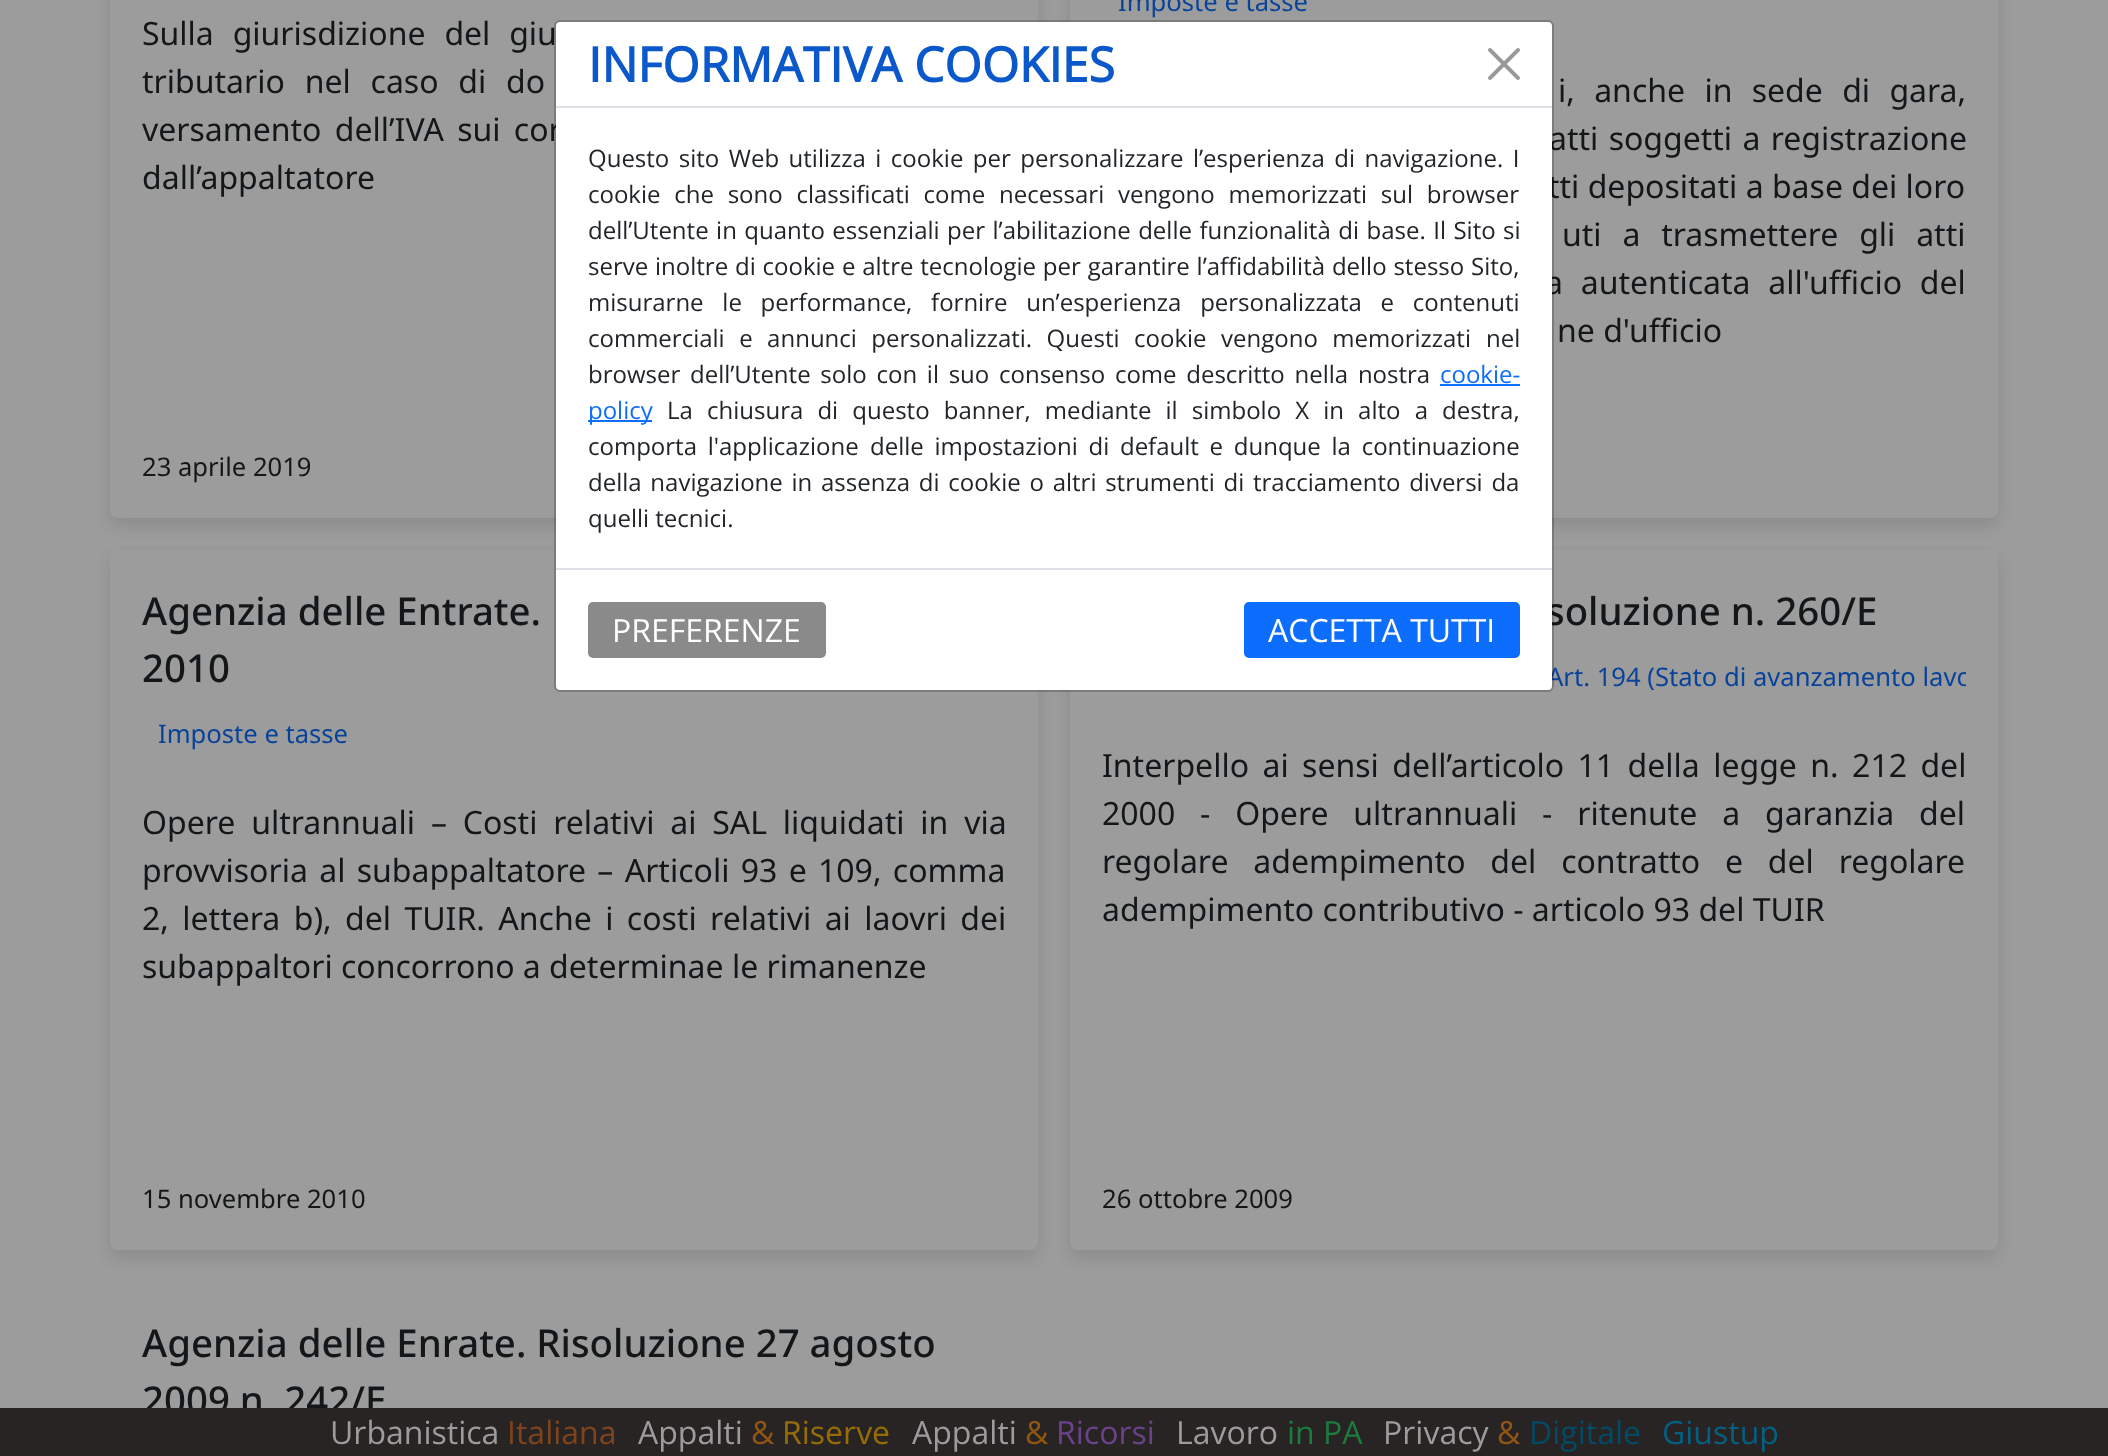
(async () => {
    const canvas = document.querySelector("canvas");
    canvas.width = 2108;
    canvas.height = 1456;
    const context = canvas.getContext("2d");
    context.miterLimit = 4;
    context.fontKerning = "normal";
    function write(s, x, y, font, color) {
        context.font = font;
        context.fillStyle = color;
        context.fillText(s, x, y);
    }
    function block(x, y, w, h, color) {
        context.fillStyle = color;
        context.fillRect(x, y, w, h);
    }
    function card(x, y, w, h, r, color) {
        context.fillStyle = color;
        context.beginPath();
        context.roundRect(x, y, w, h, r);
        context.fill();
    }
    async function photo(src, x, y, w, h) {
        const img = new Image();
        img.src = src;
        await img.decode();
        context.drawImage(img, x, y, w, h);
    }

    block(0, 0, 2108, 1456, "rgb(156, 156, 156)");
    context.save();
    context.beginPath();
    context.moveTo(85, 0);
    context.lineTo(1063, 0);
    context.lineTo(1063, 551);
    context.lineTo(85, 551);
    context.closePath();
    context.moveTo(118, -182);
    context.lineTo(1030, -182);
    context.bezierCurveTo(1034.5, -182, 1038, -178.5, 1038, -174);
    context.lineTo(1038, 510);
    context.bezierCurveTo(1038, 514.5, 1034.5, 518, 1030, 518);
    context.lineTo(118, 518);
    context.bezierCurveTo(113.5, 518, 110, 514.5, 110, 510);
    context.lineTo(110, -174);
    context.bezierCurveTo(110, -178.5, 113.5, -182, 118, -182);
    context.closePath();
    context.clip("evenodd");
    context.fillStyle = "rgba(0, 0, 0, 0.1)";
    context.filter = "blur(8px)";
    context.beginPath();
    context.roundRect(110, -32, 928, 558, 8);
    context.fill();
    context.filter = "none";
    context.restore();
    context.wordSpacing = "10.5px";
    write("Sulla giurisdizione del giu", 142, 45, "32px Noto Sans", "rgb(20, 23, 25)");
    context.wordSpacing = "11.5px";
    write("tributario nel caso di do", 142, 93, "32px Noto Sans", "rgb(20, 23, 25)");
    context.wordSpacing = "5px";
    write("versamento dell’IVA sui cor", 142, 141, "32px Noto Sans", "rgb(20, 23, 25)");
    context.wordSpacing = "0px";
    write("dall’appaltatore", 142, 189, "32px Noto Sans", "rgb(20, 23, 25)");
    write("23 aprile 2019", 142, 476, "25.6px Noto Sans", "rgb(20, 23, 25)");
    context.save();
    context.beginPath();
    context.moveTo(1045, 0);
    context.lineTo(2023, 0);
    context.lineTo(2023, 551);
    context.lineTo(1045, 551);
    context.closePath();
    context.moveTo(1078, -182);
    context.lineTo(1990, -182);
    context.bezierCurveTo(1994.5, -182, 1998, -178.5, 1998, -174);
    context.lineTo(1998, 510);
    context.bezierCurveTo(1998, 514.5, 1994.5, 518, 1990, 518);
    context.lineTo(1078, 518);
    context.bezierCurveTo(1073.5, 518, 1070, 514.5, 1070, 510);
    context.lineTo(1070, -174);
    context.bezierCurveTo(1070, -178.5, 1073.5, -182, 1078, -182);
    context.closePath();
    context.clip("evenodd");
    context.fillStyle = "rgba(0, 0, 0, 0.1)";
    context.filter = "blur(8px)";
    context.beginPath();
    context.roundRect(1070, -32, 928, 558, 8);
    context.fill();
    context.filter = "none";
    context.restore();
    write("Imposte e tasse", 1118, 11, "25.6px Noto Sans", "rgb(8, 67, 154)");
    context.wordSpacing = "11px";
    write("i, anche in sede di gara,", 1558, 102, "32px Noto Sans", "rgb(20, 23, 25)");
    context.wordSpacing = "2px";
    write("atti soggetti a registrazione", 1549, 150, "32px Noto Sans", "rgb(20, 23, 25)");
    context.wordSpacing = "0px";
    write("tti depositati a base dei loro", 1548, 198, "32px Noto Sans", "rgb(20, 23, 25)");
    context.wordSpacing = "12.5px";
    write("uti a trasmettere gli atti", 1562, 246, "32px Noto Sans", "rgb(20, 23, 25)");
    context.wordSpacing = "9.5px";
    write("a autenticata all'ufficio del", 1545, 294, "32px Noto Sans", "rgb(20, 23, 25)");
    context.wordSpacing = "0px";
    write("ne d'ufficio", 1557, 342, "32px Noto Sans", "rgb(20, 23, 25)");
    context.save();
    context.beginPath();
    context.moveTo(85, 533);
    context.lineTo(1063, 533);
    context.lineTo(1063, 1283);
    context.lineTo(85, 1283);
    context.closePath();
    context.moveTo(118, 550);
    context.lineTo(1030, 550);
    context.bezierCurveTo(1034.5, 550, 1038, 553.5, 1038, 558);
    context.lineTo(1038, 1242);
    context.bezierCurveTo(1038, 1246.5, 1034.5, 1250, 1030, 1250);
    context.lineTo(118, 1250);
    context.bezierCurveTo(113.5, 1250, 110, 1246.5, 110, 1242);
    context.lineTo(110, 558);
    context.bezierCurveTo(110, 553.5, 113.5, 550, 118, 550);
    context.closePath();
    context.clip("evenodd");
    context.fillStyle = "rgba(0, 0, 0, 0.1)";
    context.filter = "blur(8px)";
    context.beginPath();
    context.roundRect(110, 558, 928, 700, 8);
    context.fill();
    context.filter = "none";
    context.restore();
    write("Agenzia delle Entrate.", 142, 625, "500 38.4px Noto Sans", "rgb(20, 23, 25)");
    write("2010", 142, 682, "500 38.4px Noto Sans", "rgb(20, 23, 25)");
    write("Imposte e tasse", 158, 743, "25.6px Noto Sans", "rgb(8, 67, 154)");
    context.wordSpacing = "7.5px";
    write("Opere ultrannuali – Costi relativi ai SAL liquidati in via", 142, 834, "32px Noto Sans", "rgb(20, 23, 25)");
    context.wordSpacing = "3px";
    write("provvisoria al subappaltatore – Articoli 93 e 109, comma", 142, 882, "32px Noto Sans", "rgb(20, 23, 25)");
    context.wordSpacing = "5.1px";
    write("2, lettera b), del TUIR. Anche i costi relativi ai laovri dei", 142, 930, "32px Noto Sans", "rgb(20, 23, 25)");
    context.wordSpacing = "0px";
    write("subappaltori concorrono a determinae le rimanenze", 142, 978, "32px Noto Sans", "rgb(20, 23, 25)");
    write("15 novembre 2010", 142, 1208, "25.6px Noto Sans", "rgb(20, 23, 25)");
    context.save();
    context.beginPath();
    context.moveTo(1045, 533);
    context.lineTo(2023, 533);
    context.lineTo(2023, 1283);
    context.lineTo(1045, 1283);
    context.closePath();
    context.moveTo(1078, 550);
    context.lineTo(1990, 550);
    context.bezierCurveTo(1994.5, 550, 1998, 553.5, 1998, 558);
    context.lineTo(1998, 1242);
    context.bezierCurveTo(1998, 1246.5, 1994.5, 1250, 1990, 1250);
    context.lineTo(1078, 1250);
    context.bezierCurveTo(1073.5, 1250, 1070, 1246.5, 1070, 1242);
    context.lineTo(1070, 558);
    context.bezierCurveTo(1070, 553.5, 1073.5, 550, 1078, 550);
    context.closePath();
    context.clip("evenodd");
    context.fillStyle = "rgba(0, 0, 0, 0.1)";
    context.filter = "blur(8px)";
    context.beginPath();
    context.roundRect(1070, 558, 928, 700, 8);
    context.fill();
    context.filter = "none";
    context.restore();
    write("soluzione n. 260/E", 1546, 625, "500 38.4px Noto Sans", "rgb(20, 23, 25)");
    context.save();
    context.beginPath();
    context.rect(1102, 650, 864, 58);
    context.clip();
    write("Art. 194 (Stato di avanzamento lavo", 1547, 686, "25.6px Noto Sans", "rgb(8, 67, 154)");
    context.restore();
    context.wordSpacing = "5.1px";
    write("Interpello ai sensi dell’articolo 11 della legge n. 212 del", 1102, 777, "32px Noto Sans", "rgb(20, 23, 25)");
    context.wordSpacing = "16.5px";
    write("2000 - Opere ultrannuali - ritenute a garanzia del", 1102, 825, "32px Noto Sans", "rgb(20, 23, 25)");
    write("regolare adempimento del contratto e del regolare", 1102, 873, "32px Noto Sans", "rgb(20, 23, 25)");
    context.wordSpacing = "0px";
    write("adempimento contributivo - articolo 93 del TUIR", 1102, 921, "32px Noto Sans", "rgb(20, 23, 25)");
    write("26 ottobre 2009", 1102, 1208, "25.6px Noto Sans", "rgb(20, 23, 25)");
    write("Agenzia delle Enrate. Risoluzione 27 agosto", 142, 1357, "500 38.4px Noto Sans", "rgb(20, 23, 25)");
    write("2009 n. 242/E", 142, 1414, "500 38.4px Noto Sans", "rgb(20, 23, 25)");
    block(0, 1408, 2108, 48, "rgb(40, 36, 36)");
    write("Urbanistica", 330, 1444, "32px Open Sans", "rgb(156, 156, 156)");
    write("Italiana", 507, 1444, "32px Open Sans", "rgb(127, 68, 27)");
    write("Appalti", 638, 1444, "32px Open Sans", "rgb(156, 156, 156)");
    write("&", 751, 1444, "32px Open Sans", "rgb(145, 87, 18)");
    write("Riserve", 782, 1444, "32px Open Sans", "rgb(152, 109, 5)");
    write("Appalti", 912, 1444, "32px Open Sans", "rgb(156, 156, 156)");
    write("&", 1025, 1444, "32px Open Sans", "rgb(145, 87, 18)");
    write("Ricorsi", 1056, 1444, "32px Open Sans", "rgb(107, 66, 137)");
    write("Lavoro", 1176, 1444, "32px Open Sans", "rgb(156, 156, 156)");
    write("in PA", 1287, 1444, "32px Open Sans", "rgb(27, 124, 63)");
    write("Privacy", 1383, 1444, "32px Open Sans", "rgb(156, 156, 156)");
    write("&", 1497, 1444, "32px Open Sans", "rgb(145, 87, 18)");
    write("Digitale", 1529, 1444, "32px Open Sans", "rgb(3, 74, 102)");
    write("Giustup", 1662, 1444, "32px Open Sans", "rgb(4, 95, 129)");
    card(556, 22, 996, 668, 4, "rgb(255, 255, 255)");
    context.beginPath();
    context.roundRect(555, 21, 998, 670, 5);
    context.strokeStyle = "rgba(0, 0, 0, 0.2)";
    context.lineWidth = 2;
    context.stroke();
    block(556, 106, 996, 2, "rgb(222, 226, 230)");
    write("INFORMATIVA COOKIES", 588, 82, "bold 48px Open Sans", "rgb(10, 88, 202)");
    await photo("media/1.png", 1488, 48, 32, 32);
    context.wordSpacing = "3.25px";
    write("Questo sito Web utilizza i cookie per personalizzare l’esperienza di navigazione. I", 588, 167, "24px Open Sans", "rgb(33, 37, 41)");
    context.wordSpacing = "7.5px";
    write("cookie che sono classificati come necessari vengono memorizzati sul browser", 588, 203, "24px Open Sans", "rgb(33, 37, 41)");
    context.wordSpacing = "1.25px";
    write("dell’Utente in quanto essenziali per l’abilitazione delle funzionalità di base. Il Sito si", 588, 239, "24px Open Sans", "rgb(33, 37, 41)");
    context.wordSpacing = "0.6px";
    write("serve inoltre di cookie e altre tecnologie per garantire l’affidabilità dello stesso Sito,", 588, 275, "24px Open Sans", "rgb(33, 37, 41)");
    context.wordSpacing = "12.5px";
    write("misurarne le performance, fornire un’esperienza personalizzata e contenuti", 588, 311, "24px Open Sans", "rgb(33, 37, 41)");
    context.wordSpacing = "8.25px";
    write("commerciali e annunci personalizzati. Questi cookie vengono memorizzati", 588, 347, "24px Open Sans", "rgb(33, 37, 41)");
    context.wordSpacing = "0px";
    write("nel", 1486, 347, "24px Open Sans", "rgb(33, 37, 41)");
    context.wordSpacing = "3.5px";
    write("browser dell’Utente solo con il suo consenso come descritto nella nostra", 588, 383, "24px Open Sans", "rgb(33, 37, 41)");
    context.wordSpacing = "0px";
    write("cookie-", 1440, 383, "24px Open Sans", "rgb(13, 110, 253)");
    block(1440, 384, 80, 2, "rgb(13, 110, 253)");
    block(588, 420, 64, 2, "rgb(13, 110, 253)");
    write("policy", 588, 419, "24px Open Sans", "rgb(13, 110, 253)");
    context.wordSpacing = "7.9px";
    write("La chiusura di questo banner, mediante il simbolo X in alto a destra,", 667, 419, "24px Open Sans", "rgb(33, 37, 41)");
    context.wordSpacing = "4.5px";
    write("comporta l'applicazione", 588, 455, "24px Open Sans", "rgb(33, 37, 41)");
    write("delle impostazioni di default e dunque la continuazione", 870, 455, "24px Open Sans", "rgb(33, 37, 41)");
    context.wordSpacing = "2.5px";
    write("della navigazione in assenza di cookie o altri strumenti di tracciamento diversi da", 588, 491, "24px Open Sans", "rgb(33, 37, 41)");
    context.wordSpacing = "0px";
    write("quelli tecnici.", 588, 527, "24px Open Sans", "rgb(33, 37, 41)");
    block(556, 568, 996, 2, "rgb(222, 226, 230)");
    context.fillStyle = "rgb(138, 138, 138)";
    context.beginPath();
    context.roundRect(589, 603, 236, 54, 4);
    context.fill();
    context.strokeStyle = "rgb(138, 138, 138)";
    context.stroke();
    write("PREFERENZE", 612, 642, "32px Open Sans", "rgb(255, 255, 255)");
    context.fillStyle = "rgb(13, 110, 253)";
    context.beginPath();
    context.roundRect(1245, 603, 274, 54, 4);
    context.fill();
    context.strokeStyle = "rgb(13, 110, 253)";
    context.stroke();
    write("ACCETTA TUTTI", 1268, 642, "32px Open Sans", "rgb(255, 255, 255)");
})();
